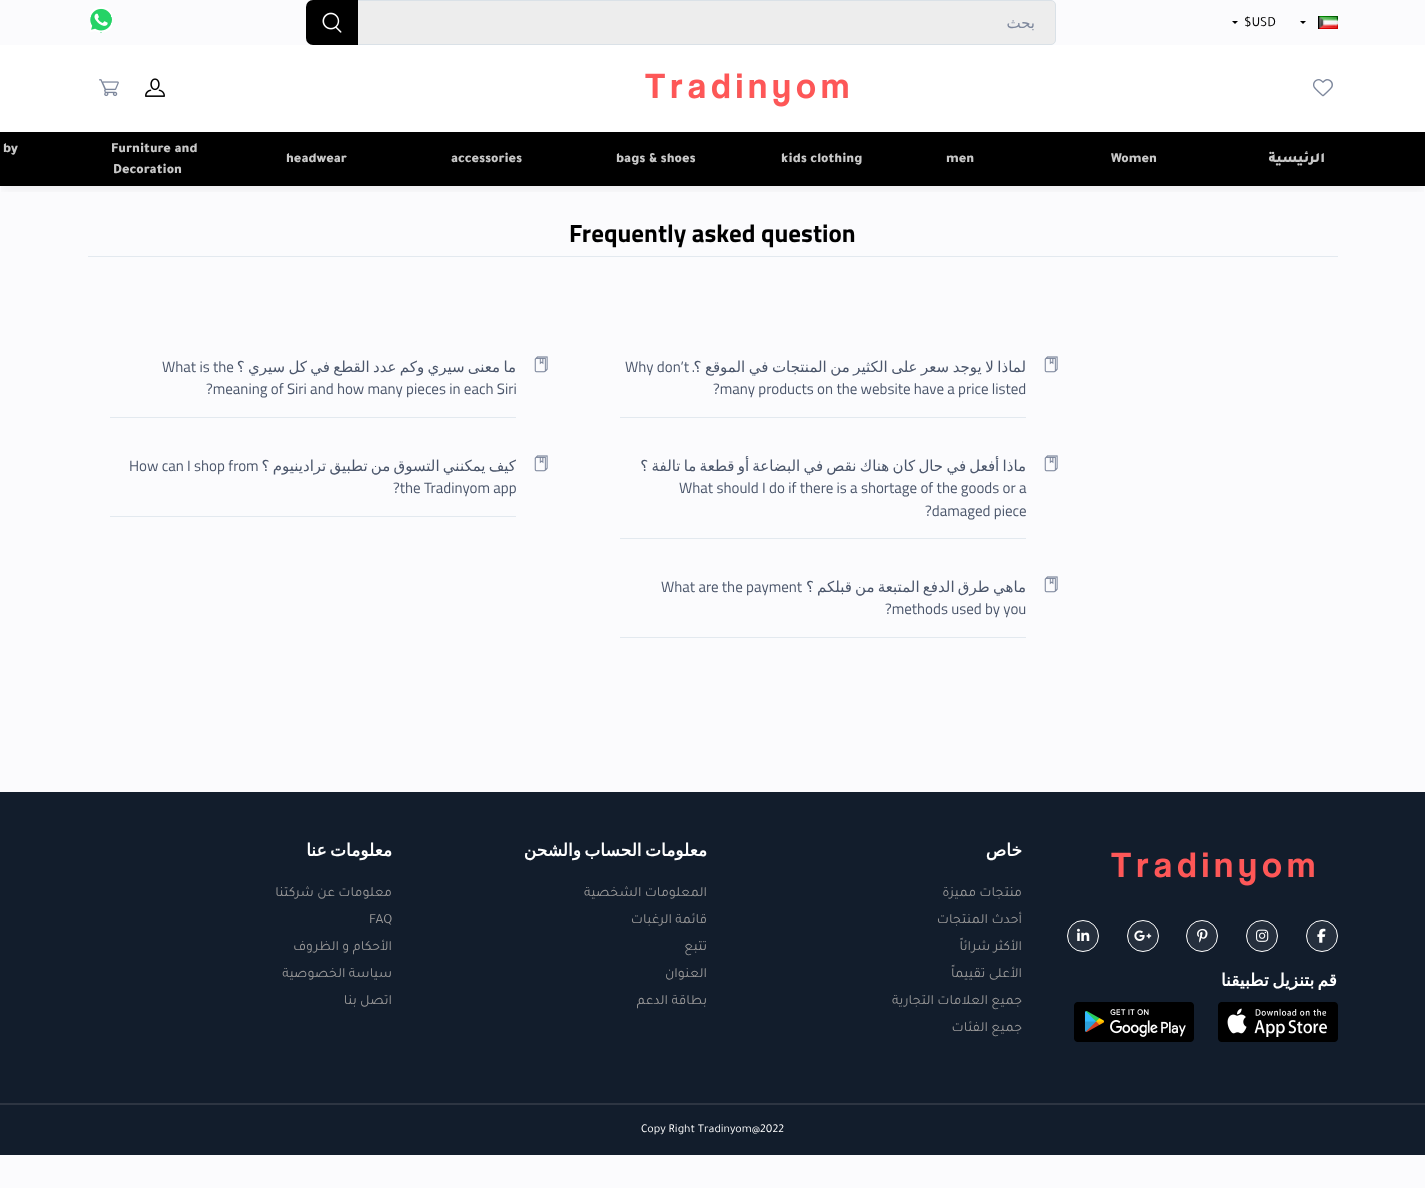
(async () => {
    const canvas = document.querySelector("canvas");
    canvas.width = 1425;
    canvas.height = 1188;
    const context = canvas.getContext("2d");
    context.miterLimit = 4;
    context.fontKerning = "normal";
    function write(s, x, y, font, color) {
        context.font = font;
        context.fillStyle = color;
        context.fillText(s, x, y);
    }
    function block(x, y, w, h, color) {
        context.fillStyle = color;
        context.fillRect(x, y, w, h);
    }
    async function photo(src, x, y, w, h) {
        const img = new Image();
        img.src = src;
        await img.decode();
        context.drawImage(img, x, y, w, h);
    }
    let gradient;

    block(0, 0, 1425, 1188, "rgb(251, 251, 253)");
    context.save();
    context.beginPath();
    context.rect(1, 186, 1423, 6);
    context.clip();
    context.fillStyle = "rgba(0, 0, 0, 0.06)";
    context.filter = "blur(6px)";
    context.beginPath();
    context.rect(1, 5, 1423, 184);
    context.fill();
    context.filter = "none";
    context.restore();
    await photo("media/1.png", 1318, 16, 20, 13);
    context.fillStyle = "rgb(0, 0, 0)";
    context.beginPath();
    context.moveTo(1300, 21);
    context.lineTo(1306, 21);
    context.lineTo(1303, 24);
    context.closePath();
    context.fill();
    write("$USD", 1244, 26, "14px Tajawal", "rgb(0, 0, 0)");
    context.beginPath();
    context.moveTo(1232, 21);
    context.lineTo(1238, 21);
    context.lineTo(1235, 24);
    context.closePath();
    context.fill();
    context.fillStyle = "rgb(237, 237, 237)";
    context.beginPath();
    context.roundRect(314.5, 0.5, 741, 44, 4.5);
    context.fill();
    context.strokeStyle = "rgb(218, 225, 231)";
    context.stroke();
    context.direction = "rtl";
    write("بحث", 1035, 28, "15px DejaVu Sans", "rgb(125, 135, 156)");
    context.fillStyle = "rgb(0, 0, 0)";
    context.beginPath();
    context.roundRect(306, 0, 52, 45, [7, 0, 0, 7]);
    context.fill();
    await photo("media/2.png", 322, 12, 20, 21);
    gradient = context.createRadialGradient(101, 17.14, 0, 101, 17.14, 18);
    gradient.addColorStop(0.6, "rgb(37, 211, 102)");
    gradient.addColorStop(0.6, "rgb(251, 251, 253)");
    context.fillStyle = gradient;
    context.beginPath();
    context.rect(90, 7, 22, 26);
    context.save();
    context.clip();
    context.scale(1, 21 / 18);
    context.fillRect(0, 0, 1425, 1019);
    context.restore();
    block(91, 26, 4, 5, "rgb(37, 211, 102)");
    await photo("media/3.png", 90, 7, 22, 26);
    block(0, 45, 1425, 87, "rgb(255, 255, 255)");
    await photo("media/4.png", 1313, 79, 20, 18);
    await photo("media/5.png", 645, 73, 203, 34);
    await photo("media/6.png", 145, 78, 20, 19);
    await photo("media/7.png", 99, 79, 20, 18);
    block(0, 132, 1425, 54, "rgb(0, 0, 0)");
    context.direction = "ltr";
    write("Furniture and", 111, 152, "900 14px Tajawal", "rgb(199, 199, 199)");
    write("Decoration", 113, 173, "900 14px Tajawal", "rgb(199, 199, 199)");
    write("by", 3, 152, "900 14px Tajawal", "rgb(199, 199, 199)");
    context.direction = "rtl";
    write("الرئيسية", 1325, 162, "900 14px Tajawal", "rgb(199, 199, 199)");
    context.direction = "ltr";
    write("Women", 1111, 162, "900 14px Tajawal", "rgb(199, 199, 199)");
    write("men", 946, 162, "900 14px Tajawal", "rgb(199, 199, 199)");
    write("kids clothing", 781, 162, "900 14px Tajawal", "rgb(199, 199, 199)");
    write("bags & shoes", 616, 162, "900 14px Tajawal", "rgb(199, 199, 199)");
    write("accessories", 451, 162, "900 14px Tajawal", "rgb(199, 199, 199)");
    write("headwear", 286, 162, "900 14px Tajawal", "rgb(199, 199, 199)");
    write("Frequently asked question", 569, 242, "bold 25px Titillium Web", "rgb(0, 0, 0)");
    block(88, 256, 1250, 1, "rgb(227, 233, 239)");
    await photo("media/8.png", 1044, 356, 14, 17);
    block(620, 417, 406, 1, "rgb(227, 233, 239)");
    context.wordSpacing = "-1.25px";
    context.direction = "rtl";
    write("لماذا لا يوجد سعر على الكثير من المنتجات في الموقع ؟", 1026, 372, "15px DejaVu Sans", "rgb(75, 86, 107)");
    context.wordSpacing = "0px";
    write(".", 695, 372, "15px Titillium Web", "rgb(75, 86, 107)");
    context.direction = "ltr";
    write("Why don’t", 625, 372, "15px Titillium Web", "rgb(75, 86, 107)");
    write("?many products on the website have a price listed", 713, 394, "15px Titillium Web", "rgb(75, 86, 107)");
    await photo("media/8.png", 1044, 455, 14, 17);
    block(620, 538, 406, 1, "rgb(227, 233, 239)");
    context.wordSpacing = "-1.5px";
    context.direction = "rtl";
    write("ماذا أفعل في حال كان هناك نقص في البضاعة أو قطعة ما تالفة ؟", 1026, 471, "15px DejaVu Sans", "rgb(75, 86, 107)");
    context.wordSpacing = "0px";
    context.direction = "ltr";
    write("What should I do if there is a shortage of the goods or a", 679, 493, "15px Titillium Web", "rgb(75, 86, 107)");
    write("?damaged piece", 925, 516, "15px Titillium Web", "rgb(75, 86, 107)");
    await photo("media/8.png", 1044, 576, 14, 17);
    block(620, 637, 406, 1, "rgb(227, 233, 239)");
    context.wordSpacing = "-1.5px";
    context.direction = "rtl";
    write("ماهي طرق الدفع المتبعة من قبلكم", 1026, 592, "15px DejaVu Sans", "rgb(75, 86, 107)");
    context.wordSpacing = "0px";
    write("؟", 814, 592, "15px DejaVu Sans", "rgb(75, 86, 107)");
    context.direction = "ltr";
    write("What are the payment", 661, 592, "15px Titillium Web", "rgb(75, 86, 107)");
    write("?methods used by you", 885, 614, "15px Titillium Web", "rgb(75, 86, 107)");
    await photo("media/8.png", 534, 356, 14, 17);
    block(110, 417, 406, 1, "rgb(227, 233, 239)");
    context.wordSpacing = "-1.5px";
    context.direction = "rtl";
    write("ما معنى سيري وكم عدد القطع في كل سيري ؟", 516, 372, "15px DejaVu Sans", "rgb(75, 86, 107)");
    context.wordSpacing = "0px";
    context.direction = "ltr";
    write("What is the", 162, 372, "15px Titillium Web", "rgb(75, 86, 107)");
    write("?meaning of Siri and how many pieces in each Siri", 206, 394, "15px Titillium Web", "rgb(75, 86, 107)");
    await photo("media/8.png", 534, 455, 14, 17);
    block(110, 516, 406, 1, "rgb(227, 233, 239)");
    context.wordSpacing = "-1.5px";
    context.direction = "rtl";
    write("كيف يمكنني التسوق من تطبيق ترادينيوم ؟", 516, 471, "15px DejaVu Sans", "rgb(75, 86, 107)");
    context.wordSpacing = "0px";
    context.direction = "ltr";
    write("How can I shop from", 129, 471, "15px Titillium Web", "rgb(75, 86, 107)");
    write("?the Tradinyom app", 393, 493, "15px Titillium Web", "rgb(75, 86, 107)");
    block(0, 792, 1425, 363, "rgb(18, 29, 44)");
    await photo("media/9.png", 1111, 852, 203, 34);
    context.fillStyle = "rgb(37, 47, 61)";
    context.beginPath();
    context.arc(1322, 936, 15.5, 0, Math.PI * 2);
    context.fill();
    context.strokeStyle = "rgb(255, 255, 255)";
    context.stroke();
    await photo("media/10.png", 1317, 928, 9, 15);
    context.beginPath();
    context.arc(1262, 936, 15.5, 0, Math.PI * 2);
    context.fill();
    context.stroke();
    await photo("media/11.png", 1256, 929, 13, 13);
    context.beginPath();
    context.arc(1202, 936, 15.5, 0, Math.PI * 2);
    context.fill();
    context.stroke();
    await photo("media/12.png", 1197, 928, 11, 15);
    context.beginPath();
    context.arc(1143, 936, 15.5, 0, Math.PI * 2);
    context.fill();
    context.stroke();
    await photo("media/13.png", 1134, 930, 18, 11);
    context.beginPath();
    context.arc(1083, 936, 15.5, 0, Math.PI * 2);
    context.fill();
    context.stroke();
    await photo("media/14.png", 1077, 928, 13, 13);
    context.wordSpacing = "-2px";
    context.direction = "rtl";
    write("قم بتنزيل تطبيقنا", 1337, 986, "bold 17px DejaVu Sans", "rgb(255, 255, 255)");
    await photo("media/15.png", 1218, 1002, 120, 40);
    await photo("media/16.png", 1074, 1002, 120, 40);
    context.wordSpacing = "0px";
    write("خاص", 1022, 856, "bold 17px DejaVu Sans", "rgb(255, 255, 255)");
    write("منتجات مميزة", 1022, 896, "14px Tajawal", "rgb(153, 152, 152)");
    write("أحدث المنتجات", 1022, 923, "14px Tajawal", "rgb(153, 152, 152)");
    write("الأكثر شرائاً", 1022, 950, "14px Tajawal", "rgb(153, 152, 152)");
    write("الأعلى تقييماً", 1022, 977, "14px Tajawal", "rgb(153, 152, 152)");
    write("جميع العلامات التجارية", 1022, 1004, "14px Tajawal", "rgb(153, 152, 152)");
    write("جميع الفئات", 1022, 1031, "14px Tajawal", "rgb(153, 152, 152)");
    context.wordSpacing = "-2px";
    write("معلومات الحساب والشحن", 707, 856, "bold 17px DejaVu Sans", "rgb(255, 255, 255)");
    context.wordSpacing = "0px";
    write("المعلومات الشخصية", 707, 896, "14px Tajawal", "rgb(153, 152, 152)");
    write("قائمة الرغبات", 707, 923, "14px Tajawal", "rgb(153, 152, 152)");
    write("تتبع", 707, 950, "14px Tajawal", "rgb(153, 152, 152)");
    write("العنوان", 707, 977, "14px Tajawal", "rgb(153, 152, 152)");
    write("بطاقة الدعم", 707, 1004, "14px Tajawal", "rgb(153, 152, 152)");
    context.wordSpacing = "-2px";
    write("معلومات عنا", 392, 856, "bold 17px DejaVu Sans", "rgb(255, 255, 255)");
    context.wordSpacing = "0px";
    write("معلومات عن شركتنا", 392, 896, "14px Tajawal", "rgb(153, 152, 152)");
    context.direction = "ltr";
    write("FAQ", 369, 923, "14px Tajawal", "rgb(153, 152, 152)");
    context.direction = "rtl";
    write("الأحكام و الظروف", 392, 950, "14px Tajawal", "rgb(153, 152, 152)");
    write("سياسة الخصوصية", 392, 977, "14px Tajawal", "rgb(153, 152, 152)");
    write("اتصل بنا", 392, 1004, "14px Tajawal", "rgb(153, 152, 152)");
    block(0, 1103, 1425, 2, "rgb(45, 53, 66)");
    context.direction = "ltr";
    write("Copy Right Tradinyom@2022", 641, 1132, "12px Tajawal", "rgb(255, 255, 255)");
})();
